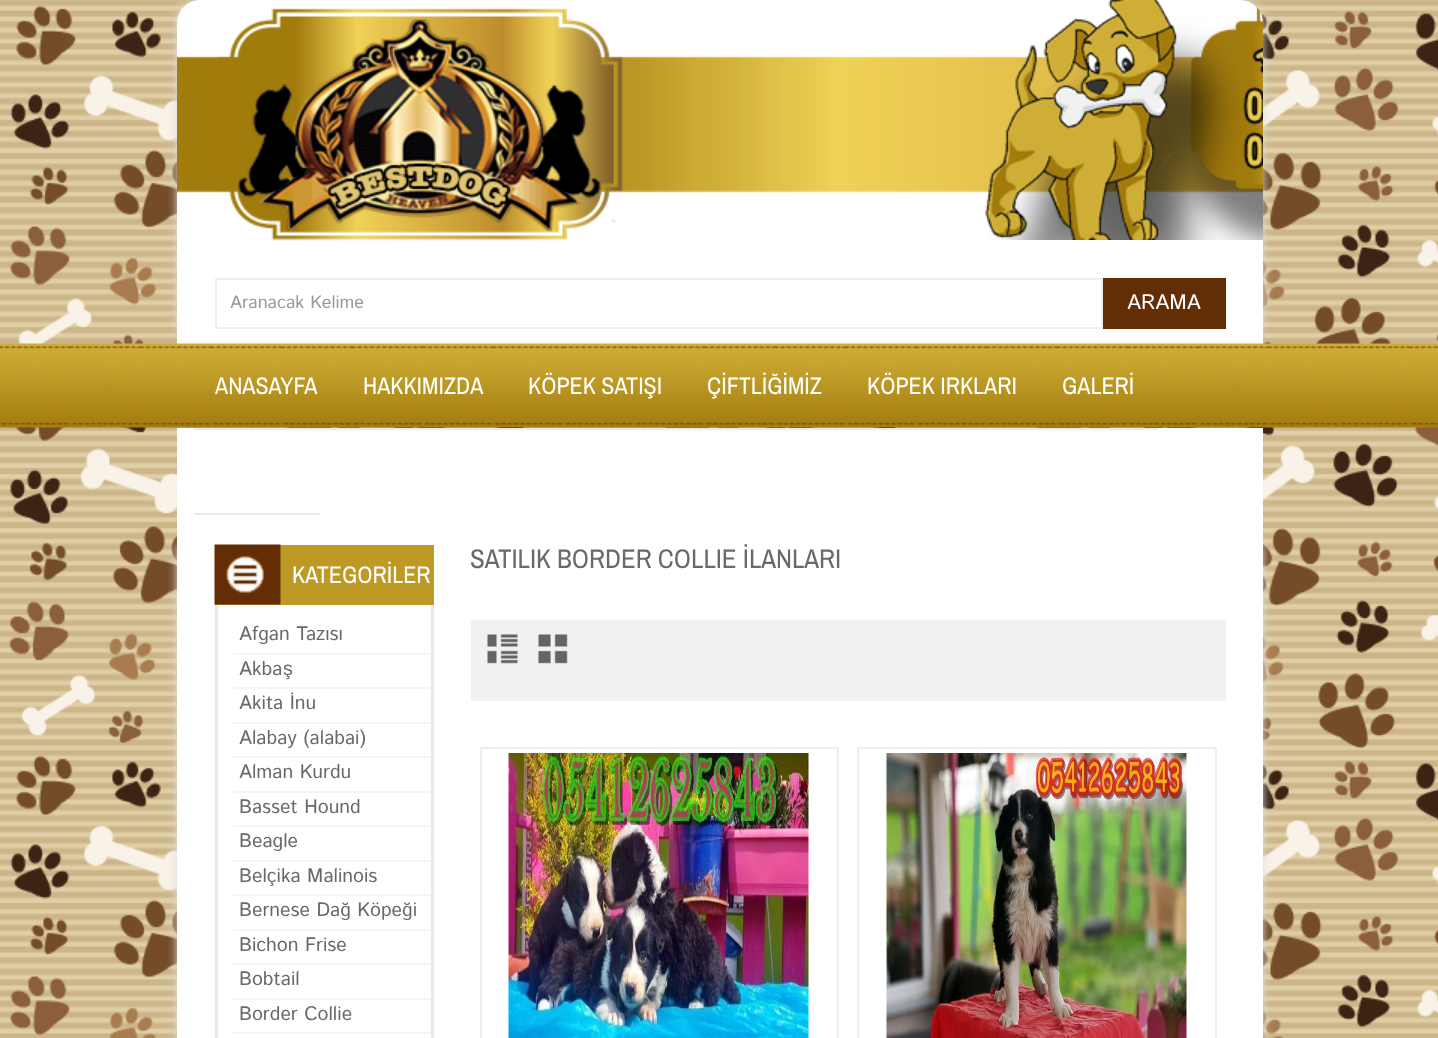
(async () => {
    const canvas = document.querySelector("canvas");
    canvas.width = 1438;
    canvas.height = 1038;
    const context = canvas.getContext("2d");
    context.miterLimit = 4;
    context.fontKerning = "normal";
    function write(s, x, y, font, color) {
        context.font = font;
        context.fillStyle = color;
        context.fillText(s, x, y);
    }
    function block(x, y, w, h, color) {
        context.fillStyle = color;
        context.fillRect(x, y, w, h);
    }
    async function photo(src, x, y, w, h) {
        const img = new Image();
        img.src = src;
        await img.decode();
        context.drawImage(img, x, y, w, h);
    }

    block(0, 0, 1438, 1038, "rgb(255, 255, 255)");
    await photo("media/1.png", 0, 0, 1438, 1038);
    context.fillStyle = "rgb(221, 221, 221)";
    context.filter = "blur(5px)";
    context.beginPath();
    context.roundRect(177, 0, 1086, 344, 23);
    context.fill();
    context.filter = "none";
    context.fillStyle = "rgb(255, 255, 255)";
    context.beginPath();
    context.roundRect(177, 0, 1086, 344, [23, 23, 0, 0]);
    context.fill();
    await photo("media/2.png", 177, 0, 1086, 240);
    await photo("media/3.png", 217, 8, 406, 233);
    context.strokeStyle = "rgb(238, 238, 238)";
    context.lineWidth = 2;
    context.strokeRect(216, 279, 886, 49);
    write("Aranacak Kelime", 230, 308, "18px Istok Web", "rgb(153, 153, 153)");
    block(1103, 278, 123, 51, "rgb(99, 46, 5)");
    write("ARAMA", 1127, 309, "21px Istok Web", "rgb(255, 255, 255)");
    await photo("media/4.png", 0, 343, 1438, 85);
    context.fillStyle = "rgb(221, 221, 221)";
    context.filter = "blur(5px)";
    context.beginPath();
    context.rect(177, 545, 1086, 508);
    context.fill();
    context.filter = "none";
    block(177, 428, 1086, 610, "rgb(255, 255, 255)");
    block(194, 428, 963, 2, "rgb(235, 235, 235)");
    write("ANASAYFA", 215, 394, "24px Archivo Narrow", "rgb(255, 255, 255)");
    write("HAKKIMIZDA", 363, 394, "24px Archivo Narrow", "rgb(255, 255, 255)");
    write("KÖPEK SATIŞI", 528, 394, "24px Archivo Narrow", "rgb(255, 255, 255)");
    write("ÇİFTLİĞİMİZ", 707, 394, "24px Archivo Narrow", "rgb(255, 255, 255)");
    write("KÖPEK IRKLARI", 867, 394, "24px Archivo Narrow", "rgb(255, 255, 255)");
    write("GALERİ", 1062, 394, "24px Archivo Narrow", "rgb(255, 255, 255)");
    block(194, 513, 126, 2, "rgb(235, 235, 235)");
    write("SATILIK BORDER COLLIE İLANLARI", 470, 568, "27px Archivo Narrow", "rgb(105, 105, 105)");
    block(471, 620, 755, 81, "rgb(242, 240, 241)");
    await photo("media/5.png", 487, 634, 31, 30);
    await photo("media/6.png", 538, 634, 30, 30);
    context.strokeRect(481, 748, 357, 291);
    await photo("media/7.png", 508, 753, 301, 285);
    context.strokeRect(858, 748, 358, 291);
    await photo("media/8.png", 886, 753, 301, 285);
    block(215, 545, 219, 60, "rgb(189, 153, 38)");
    await photo("media/9.png", 214, 544, 67, 61);
    write("KATEGORİLER", 292, 583, "24px Archivo Narrow", "rgb(255, 255, 255)");
    block(431, 605, 3, 433, "rgb(233, 233, 233)");
    block(215, 605, 3, 433, "rgb(233, 233, 233)");
    write("Afgan Tazısı", 239, 640, "19.5px Istok Web", "rgb(105, 105, 105)");
    block(233, 653, 198, 2, "rgb(245, 245, 245)");
    write("Akba", 239, 675, "19.5px Istok Web", "rgb(105, 105, 105)");
    write("ş", 283, 675, "19.5px Liberation Sans", "rgb(105, 105, 105)");
    block(233, 687, 198, 2, "rgb(245, 245, 245)");
    write("Akita İnu", 239, 709, "19.5px Istok Web", "rgb(105, 105, 105)");
    block(233, 722, 198, 2, "rgb(245, 245, 245)");
    write("Alabay (alabai)", 239, 744, "19.5px Istok Web", "rgb(105, 105, 105)");
    block(233, 756, 198, 2, "rgb(245, 245, 245)");
    write("Alman Kurdu", 239, 778, "19.5px Istok Web", "rgb(105, 105, 105)");
    block(233, 791, 198, 2, "rgb(245, 245, 245)");
    write("Basset Hound", 239, 813, "19.5px Istok Web", "rgb(105, 105, 105)");
    block(233, 825, 198, 2, "rgb(245, 245, 245)");
    write("Beagle", 239, 847, "19.5px Istok Web", "rgb(105, 105, 105)");
    block(233, 860, 198, 2, "rgb(245, 245, 245)");
    write("Belçika Malinois", 239, 882, "19.5px Istok Web", "rgb(105, 105, 105)");
    block(233, 894, 198, 2, "rgb(245, 245, 245)");
    write("Bernese Dağ Köpeği", 239, 916, "19.5px Istok Web", "rgb(105, 105, 105)");
    block(233, 929, 198, 2, "rgb(245, 245, 245)");
    write("Bichon Frise", 239, 951, "19.5px Istok Web", "rgb(105, 105, 105)");
    block(233, 963, 198, 2, "rgb(245, 245, 245)");
    write("Bobtail", 239, 985, "19.5px Istok Web", "rgb(105, 105, 105)");
    block(233, 998, 198, 2, "rgb(245, 245, 245)");
    write("Border Collie", 239, 1020, "19.5px Istok Web", "rgb(105, 105, 105)");
    block(233, 1032, 198, 2, "rgb(245, 245, 245)");
})();
